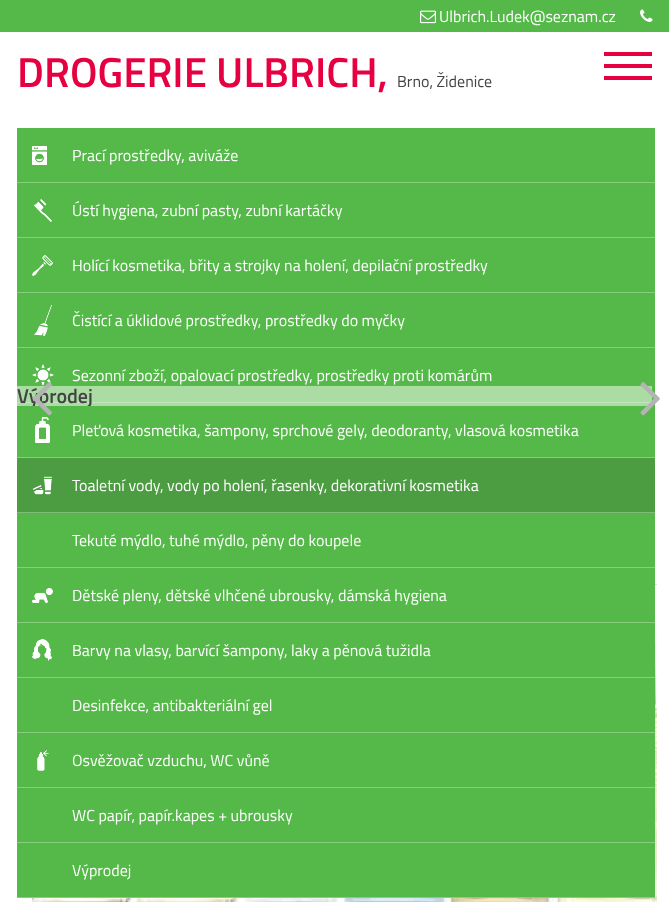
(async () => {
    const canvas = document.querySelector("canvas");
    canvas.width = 669;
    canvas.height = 902;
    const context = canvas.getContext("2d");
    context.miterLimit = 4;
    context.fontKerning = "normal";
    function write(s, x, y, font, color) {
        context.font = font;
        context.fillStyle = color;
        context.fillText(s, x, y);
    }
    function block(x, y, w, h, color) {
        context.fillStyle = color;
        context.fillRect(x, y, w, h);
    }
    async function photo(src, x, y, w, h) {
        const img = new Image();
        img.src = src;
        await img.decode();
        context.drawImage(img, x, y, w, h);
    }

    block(0, 0, 669, 902, "rgb(255, 255, 255)");
    block(0, 0, 669, 32, "rgb(84, 185, 72)");
    await photo("media/1.png", 420, 10, 16, 14);
    write("Ulbrich.Ludek@seznam.cz", 439, 22, "16px Titillium Web", "rgb(255, 255, 255)");
    await photo("media/2.png", 640, 9, 13, 13);
    write("DROGERIE ULBRICH,", 17, 87, "600 42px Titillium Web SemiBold", "rgb(230, 0, 65)");
    write("Brno, Židenice", 397, 87, "16px Titillium Web", "rgb(68, 68, 68)");
    block(604, 52, 48, 4, "rgb(230, 0, 65)");
    block(604, 64, 48, 4, "rgb(230, 0, 65)");
    block(604, 76, 48, 4, "rgb(230, 0, 65)");
    await photo("media/15.png", 32, 631, 625, 271);
    block(17, 128, 638, 769, "rgb(84, 185, 72)");
    block(17, 386, 635, 20, "rgb(170, 220, 164)");
    block(17, 402, 635, 1, "rgb(195, 231, 191)");
    context.save();
    context.beginPath();
    context.rect(17, 386, 635, 20);
    context.clip();
    write("Výprodej", 17, 403, "600 20px Titillium Web SemiBold", "rgb(68, 68, 68)");
    context.restore();
    await photo("media/9.png", 32, 364, 22, 22);
    await photo("media/3.png", 32, 382, 20, 34);
    await photo("media/4.png", 640, 382, 20, 34);
    block(17, 182, 638, 1, "rgb(135, 206, 127)");
    await photo("media/5.png", 32, 146, 15, 19);
    write("Prací prostředky, aviváže", 72, 161, "16px Titillium Web", "rgb(255, 255, 255)");
    block(17, 237, 638, 1, "rgb(135, 206, 127)");
    await photo("media/6.png", 34, 199, 18, 23);
    write("Ústí hygiena, zubní pasty, zubní kartáčky", 72, 216, "16px Titillium Web", "rgb(255, 255, 255)");
    block(17, 292, 638, 1, "rgb(135, 206, 127)");
    await photo("media/7.png", 32, 255, 21, 21);
    write("Holící kosmetika, břity a strojky na holení, depilační prostředky", 72, 271, "16px Titillium Web", "rgb(255, 255, 255)");
    block(17, 347, 638, 1, "rgb(135, 206, 127)");
    await photo("media/8.png", 33, 305, 19, 31);
    write("Čistící a úklidové prostředky, prostředky do myčky", 72, 326, "16px Titillium Web", "rgb(255, 255, 255)");
    write("Sezonní zboží, opalovací prostředky, prostředky proti komárům", 72, 381, "16px Titillium Web", "rgb(255, 255, 255)");
    block(17, 457, 638, 1, "rgb(135, 206, 127)");
    await photo("media/10.png", 35, 417, 15, 26);
    write("Pleťová kosmetika, šampony, sprchové gely, deodoranty, vlasová kosmetika", 72, 436, "16px Titillium Web", "rgb(255, 255, 255)");
    block(17, 458, 638, 54, "rgb(76, 157, 66)");
    block(17, 512, 638, 1, "rgb(130, 186, 123)");
    await photo("media/11.png", 33, 476, 19, 19);
    write("Toaletní vody, vody po holení, řasenky, dekorativní kosmetika", 72, 491, "16px Titillium Web", "rgb(255, 255, 255)");
    block(17, 567, 638, 1, "rgb(135, 206, 127)");
    write("Tekuté mýdlo, tuhé mýdlo, pěny do koupele", 72, 546, "16px Titillium Web", "rgb(255, 255, 255)");
    block(17, 622, 638, 1, "rgb(135, 206, 127)");
    await photo("media/12.png", 32, 588, 21, 15);
    write("Dětské pleny, dětské vlhčené ubrousky, dámská hygiena", 72, 601, "16px Titillium Web", "rgb(255, 255, 255)");
    block(17, 677, 638, 1, "rgb(135, 206, 127)");
    await photo("media/13.png", 32, 639, 20, 22);
    write("Barvy na vlasy, barvící šampony, laky a pěnová tužidla", 72, 656, "16px Titillium Web", "rgb(255, 255, 255)");
    block(17, 732, 638, 1, "rgb(135, 206, 127)");
    write("Desinfekce, antibakteriální gel", 72, 711, "16px Titillium Web", "rgb(255, 255, 255)");
    block(17, 787, 638, 1, "rgb(135, 206, 127)");
    await photo("media/14.png", 37, 750, 12, 21);
    write("Osvěžovač vzduchu, WC vůně", 72, 766, "16px Titillium Web", "rgb(255, 255, 255)");
    block(17, 842, 638, 1, "rgb(135, 206, 127)");
    write("WC papír, papír.kapes + ubrousky", 72, 821, "16px Titillium Web", "rgb(255, 255, 255)");
    block(17, 897, 638, 1, "rgb(135, 206, 127)");
    write("Výprodej", 72, 876, "16px Titillium Web", "rgb(255, 255, 255)");
    block(655, 584, 2, 1, "rgb(221, 221, 221)");
})();
